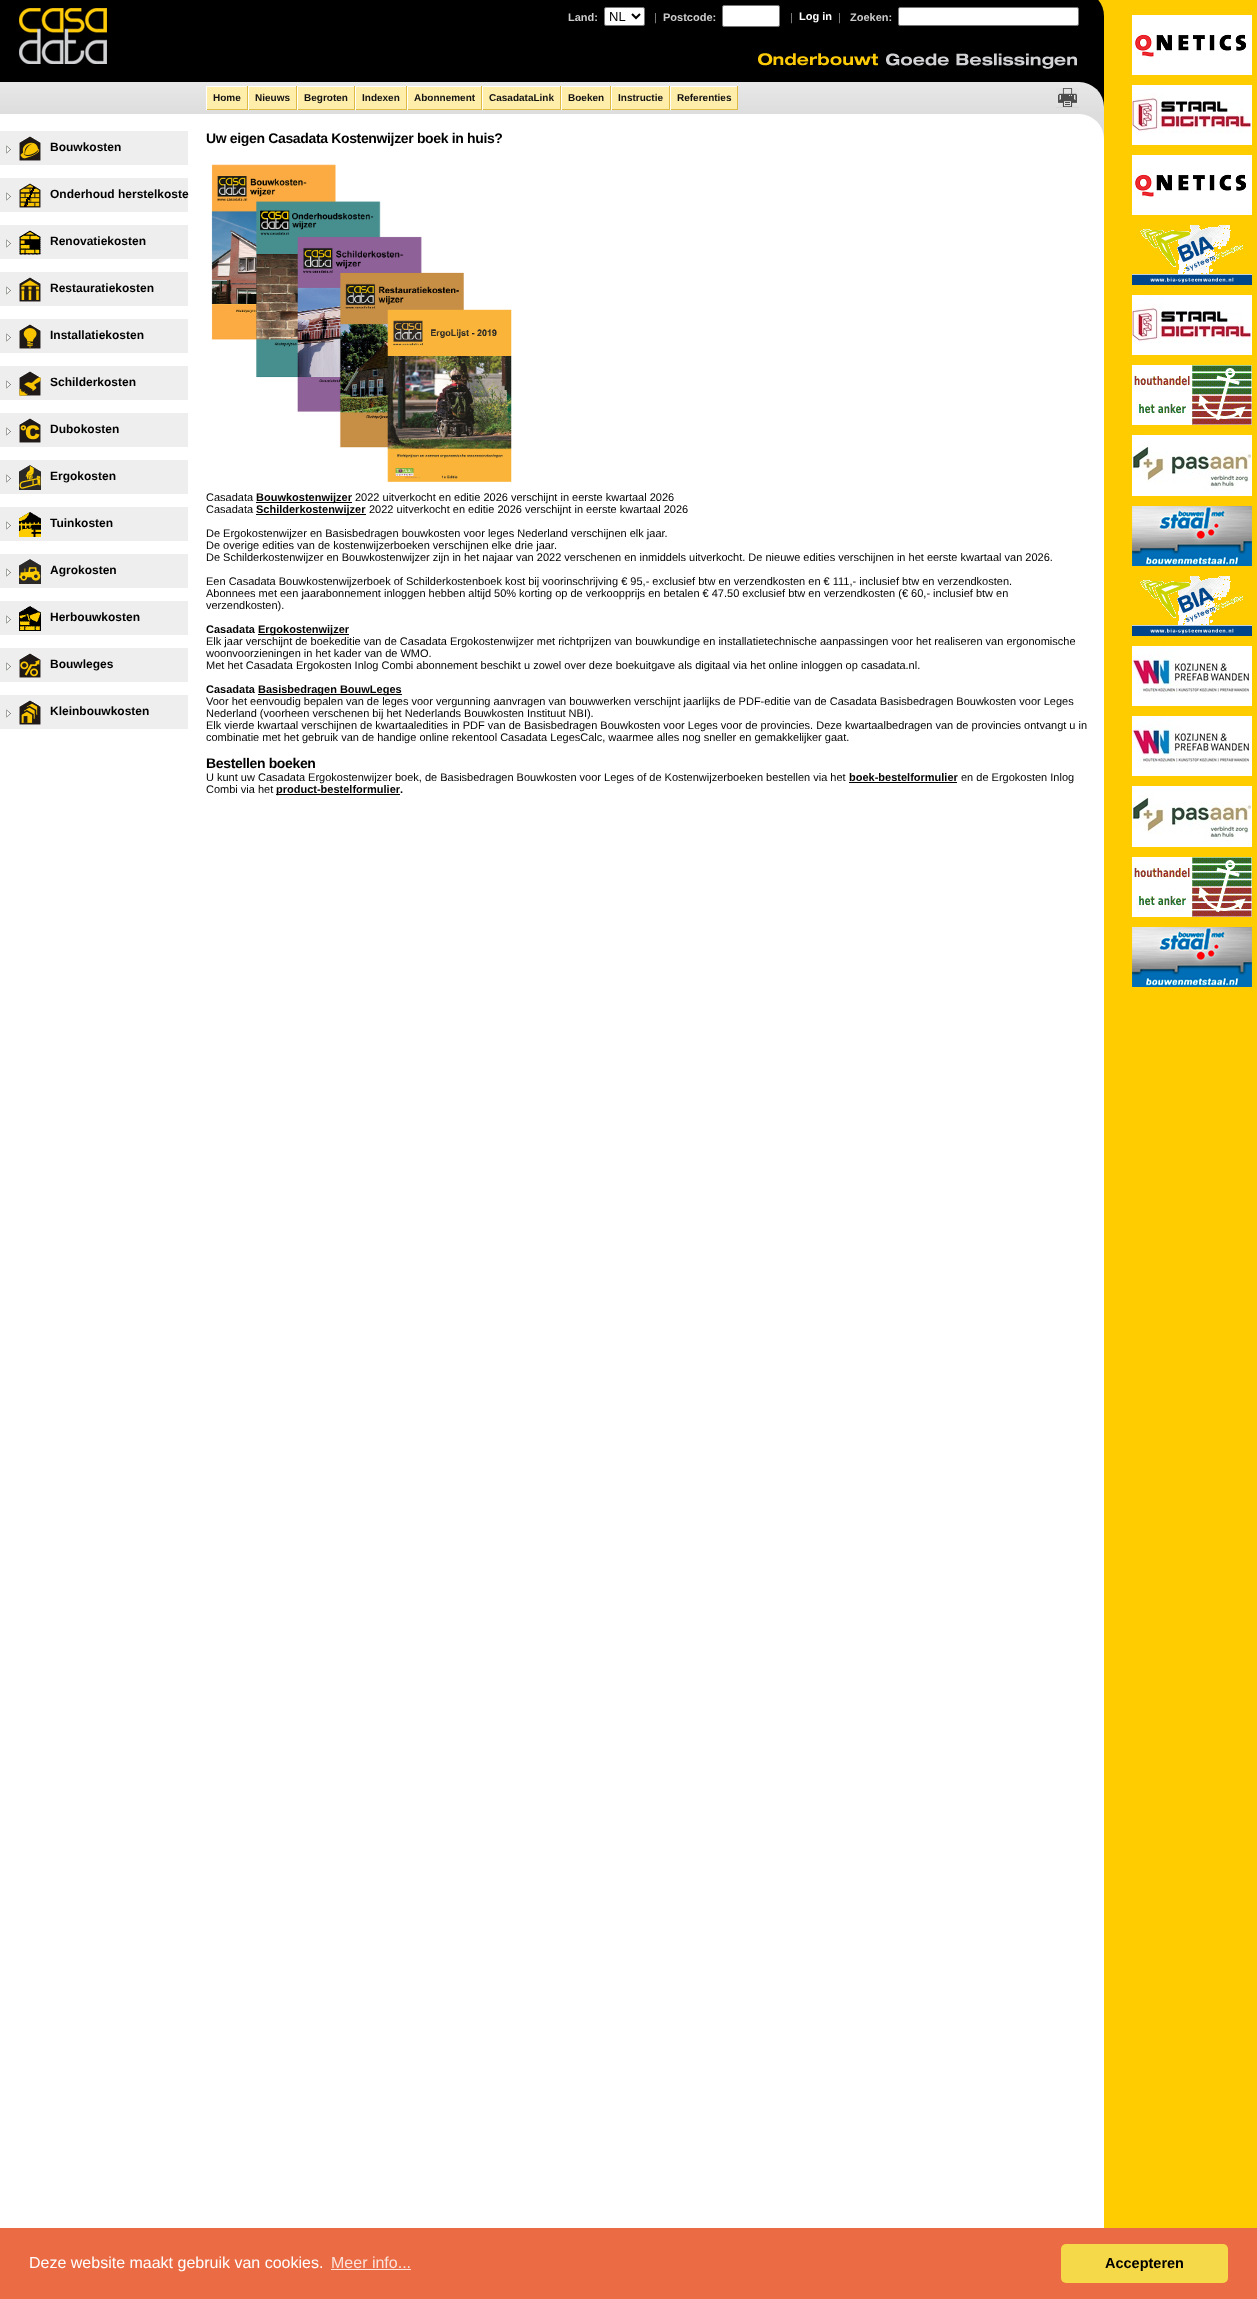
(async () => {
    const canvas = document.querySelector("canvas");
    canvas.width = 1257;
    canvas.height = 2299;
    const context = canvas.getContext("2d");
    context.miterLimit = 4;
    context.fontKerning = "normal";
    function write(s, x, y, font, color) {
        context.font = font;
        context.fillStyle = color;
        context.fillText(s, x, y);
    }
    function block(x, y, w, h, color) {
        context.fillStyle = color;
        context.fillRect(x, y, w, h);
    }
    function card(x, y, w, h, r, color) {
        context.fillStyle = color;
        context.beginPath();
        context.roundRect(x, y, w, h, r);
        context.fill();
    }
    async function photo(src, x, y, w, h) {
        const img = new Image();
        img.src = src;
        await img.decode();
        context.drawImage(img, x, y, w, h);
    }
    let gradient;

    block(0, 0, 1257, 2299, "rgb(255, 204, 0)");
    block(0, 114, 1104, 2114, "rgb(255, 255, 255)");
    context.fillStyle = "rgb(0, 0, 0)";
    context.beginPath();
    context.moveTo(0, -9);
    context.lineTo(1079, -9);
    context.bezierCurveTo(1093, -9, 1104, 2, 1104, 16);
    context.lineTo(1104, 114);
    context.lineTo(0, 114);
    context.closePath();
    context.fill();
    await photo("media/1.png", 17, 8, 90, 56);
    write("Land:", 568, 21, "bold 11px Liberation Sans", "rgb(204, 204, 204)");
    context.fillStyle = "rgb(255, 255, 255)";
    context.beginPath();
    context.roundRect(604.5, 7.5, 40, 18, 1.5);
    context.fill();
    context.strokeStyle = "rgb(118, 118, 118)";
    context.stroke();
    context.beginPath();
    context.moveTo(632, 14);
    context.lineTo(636, 18);
    context.lineTo(640, 14);
    context.strokeStyle = "rgb(0, 0, 0)";
    context.lineWidth = 2;
    context.stroke();
    write("NL", 609, 21, "13px Liberation Sans", "rgb(0, 0, 0)");
    write("|", 654, 21, "11px Liberation Sans", "rgb(136, 136, 136)");
    write("Postcode:", 663, 21, "bold 11px Liberation Sans", "rgb(204, 204, 204)");
    context.fillStyle = "rgb(255, 255, 255)";
    context.beginPath();
    context.roundRect(722.5, 5.5, 57, 21, 1.5);
    context.fill();
    context.strokeStyle = "rgb(118, 118, 118)";
    context.lineWidth = 1;
    context.stroke();
    write("|", 790, 21, "11px Liberation Sans", "rgb(136, 136, 136)");
    write("Log in", 799, 20, "bold 11px Liberation Sans", "rgb(255, 255, 255)");
    write("|", 838, 21, "11px Liberation Sans", "rgb(136, 136, 136)");
    write("Zoeken:", 850, 21, "bold 11px Liberation Sans", "rgb(204, 204, 204)");
    context.fillStyle = "rgb(255, 255, 255)";
    context.beginPath();
    context.roundRect(898.5, 7.5, 180, 18, 1.5);
    context.fill();
    context.stroke();
    await photo("media/2.png", 757, 49, 320, 20);
    gradient = context.createLinearGradient(552, 82, 552, 114);
    gradient.addColorStop(0, "rgb(232, 232, 232)");
    gradient.addColorStop(1, "rgb(221, 221, 221)");
    context.fillStyle = gradient;
    context.beginPath();
    context.roundRect(0, 82, 1104, 32, [0, 25, 0, 0]);
    context.fill();
    block(207, 87, 40, 22, "rgb(255, 238, 170)");
    block(206, 86, 532, 1, "rgb(255, 255, 255)");
    block(247, 86, 1, 24, "rgb(221, 187, 68)");
    block(206, 109, 42, 1, "rgb(221, 187, 68)");
    block(206, 86, 1, 24, "rgb(255, 255, 255)");
    write("Home", 213, 101, "bold 10px Liberation Sans", "rgb(17, 17, 17)");
    block(249, 87, 47, 22, "rgb(255, 238, 170)");
    block(296, 86, 1, 24, "rgb(221, 187, 68)");
    block(248, 109, 49, 1, "rgb(221, 187, 68)");
    block(248, 86, 1, 24, "rgb(255, 255, 255)");
    write("Nieuws", 255, 101, "bold 10px Liberation Sans", "rgb(17, 17, 17)");
    block(298, 87, 56, 22, "rgb(255, 238, 170)");
    block(354, 86, 1, 24, "rgb(221, 187, 68)");
    block(297, 109, 58, 1, "rgb(221, 187, 68)");
    block(297, 86, 1, 24, "rgb(255, 255, 255)");
    write("Begroten", 304, 101, "bold 10px Liberation Sans", "rgb(17, 17, 17)");
    block(356, 87, 50, 22, "rgb(255, 238, 170)");
    block(406, 86, 1, 24, "rgb(221, 187, 68)");
    block(355, 109, 52, 1, "rgb(221, 187, 68)");
    block(355, 86, 1, 24, "rgb(255, 255, 255)");
    write("Indexen", 362, 101, "bold 10px Liberation Sans", "rgb(17, 17, 17)");
    block(408, 87, 73, 22, "rgb(255, 238, 170)");
    block(481, 86, 1, 24, "rgb(221, 187, 68)");
    block(407, 109, 75, 1, "rgb(221, 187, 68)");
    block(407, 86, 1, 24, "rgb(255, 255, 255)");
    write("Abonnement", 414, 101, "bold 10px Liberation Sans", "rgb(17, 17, 17)");
    block(483, 87, 77, 22, "rgb(255, 238, 170)");
    block(560, 86, 1, 24, "rgb(221, 187, 68)");
    block(482, 109, 79, 1, "rgb(221, 187, 68)");
    block(482, 86, 1, 24, "rgb(255, 255, 255)");
    write("CasadataLink", 489, 101, "bold 10px Liberation Sans", "rgb(17, 17, 17)");
    block(562, 87, 48, 22, "rgb(255, 238, 170)");
    block(610, 86, 1, 24, "rgb(221, 187, 68)");
    block(561, 109, 50, 1, "rgb(221, 187, 68)");
    block(561, 86, 1, 24, "rgb(255, 255, 255)");
    write("Boeken", 568, 101, "bold 10px Liberation Sans", "rgb(17, 17, 17)");
    block(612, 87, 57, 22, "rgb(255, 238, 170)");
    block(669, 86, 1, 24, "rgb(221, 187, 68)");
    block(611, 109, 59, 1, "rgb(221, 187, 68)");
    block(611, 86, 1, 24, "rgb(255, 255, 255)");
    write("Instructie", 618, 101, "bold 10px Liberation Sans", "rgb(17, 17, 17)");
    block(671, 87, 66, 22, "rgb(255, 238, 170)");
    block(737, 86, 1, 24, "rgb(221, 187, 68)");
    block(670, 109, 68, 1, "rgb(221, 187, 68)");
    block(670, 86, 1, 24, "rgb(255, 255, 255)");
    write("Referenties", 677, 101, "bold 10px Liberation Sans", "rgb(17, 17, 17)");
    await photo("media/3.png", 1056, 88, 23, 20);
    block(0, 131, 188, 34, "rgb(238, 238, 238)");
    await photo("media/4.png", 6, 145, 5, 9);
    await photo("media/5.png", 19, 136, 22, 25);
    write("Bouwkosten", 50, 151, "bold 12px Liberation Sans", "rgb(0, 0, 0)");
    block(0, 178, 188, 34, "rgb(238, 238, 238)");
    await photo("media/4.png", 6, 192, 5, 9);
    await photo("media/6.png", 19, 183, 22, 25);
    write("Onderhoud herstelkoste", 50, 198, "bold 12px Liberation Sans", "rgb(0, 0, 0)");
    block(0, 225, 188, 34, "rgb(238, 238, 238)");
    await photo("media/4.png", 6, 239, 5, 9);
    await photo("media/7.png", 19, 230, 22, 25);
    write("Renovatiekosten", 50, 245, "bold 12px Liberation Sans", "rgb(0, 0, 0)");
    block(0, 272, 188, 34, "rgb(238, 238, 238)");
    await photo("media/4.png", 6, 286, 5, 9);
    await photo("media/8.png", 19, 277, 22, 25);
    write("Restauratiekosten", 50, 292, "bold 12px Liberation Sans", "rgb(0, 0, 0)");
    block(0, 319, 188, 34, "rgb(238, 238, 238)");
    await photo("media/4.png", 6, 333, 5, 9);
    await photo("media/9.png", 19, 324, 22, 25);
    write("Installatiekosten", 50, 339, "bold 12px Liberation Sans", "rgb(0, 0, 0)");
    block(0, 366, 188, 34, "rgb(238, 238, 238)");
    await photo("media/4.png", 6, 380, 5, 9);
    await photo("media/10.png", 19, 371, 22, 25);
    write("Schilderkosten", 50, 386, "bold 12px Liberation Sans", "rgb(0, 0, 0)");
    block(0, 413, 188, 34, "rgb(238, 238, 238)");
    await photo("media/4.png", 6, 427, 5, 9);
    await photo("media/11.png", 19, 418, 22, 25);
    write("Dubokosten", 50, 433, "bold 12px Liberation Sans", "rgb(0, 0, 0)");
    block(0, 460, 188, 34, "rgb(238, 238, 238)");
    await photo("media/4.png", 6, 474, 5, 9);
    await photo("media/12.png", 19, 465, 22, 25);
    write("Ergokosten", 50, 480, "bold 12px Liberation Sans", "rgb(0, 0, 0)");
    block(0, 507, 188, 34, "rgb(238, 238, 238)");
    await photo("media/4.png", 6, 521, 5, 9);
    await photo("media/13.png", 19, 512, 22, 25);
    write("Tuinkosten", 50, 527, "bold 12px Liberation Sans", "rgb(0, 0, 0)");
    block(0, 554, 188, 34, "rgb(238, 238, 238)");
    await photo("media/4.png", 6, 568, 5, 9);
    await photo("media/14.png", 19, 559, 22, 25);
    write("Agrokosten", 50, 574, "bold 12px Liberation Sans", "rgb(0, 0, 0)");
    block(0, 601, 188, 34, "rgb(238, 238, 238)");
    await photo("media/4.png", 6, 615, 5, 9);
    await photo("media/15.png", 19, 606, 22, 25);
    write("Herbouwkosten", 50, 621, "bold 12px Liberation Sans", "rgb(0, 0, 0)");
    block(0, 648, 188, 34, "rgb(238, 238, 238)");
    await photo("media/4.png", 6, 662, 5, 9);
    await photo("media/16.png", 19, 653, 22, 25);
    write("Bouwleges", 50, 668, "bold 12px Liberation Sans", "rgb(0, 0, 0)");
    block(0, 695, 188, 34, "rgb(238, 238, 238)");
    await photo("media/4.png", 6, 709, 5, 9);
    await photo("media/17.png", 19, 700, 22, 25);
    write("Kleinbouwkosten", 50, 715, "bold 12px Liberation Sans", "rgb(0, 0, 0)");
    block(1079, 114, 25, 25, "rgb(221, 221, 221)");
    context.fillStyle = "rgb(255, 255, 255)";
    context.beginPath();
    context.roundRect(190, 114, 914, 697, [0, 25, 0, 0]);
    context.fill();
    context.letterSpacing = "-0.35px";
    write("Uw eigen Casadata Kostenwijzer boek in huis?", 206, 143, "bold 14px Liberation Sans", "rgb(0, 0, 0)");
    await photo("media/18.png", 211, 164, 301, 318);
    context.letterSpacing = "0px";
    write("Casadata", 206, 501, "11px Liberation Sans", "rgb(0, 0, 0)");
    block(256, 502, 96, 1, "rgb(0, 0, 0)");
    write("Bouwkostenwijzer", 256, 501, "bold 11px Liberation Sans", "rgb(0, 0, 0)");
    write("2022 uitverkocht en editie 2026 verschijnt in eerste kwartaal 2026", 355, 501, "11px Liberation Sans", "rgb(0, 0, 0)");
    write("Casadata", 206, 513, "11px Liberation Sans", "rgb(0, 0, 0)");
    block(256, 514, 110, 1, "rgb(0, 0, 0)");
    write("Schilderkostenwijzer", 256, 513, "bold 11px Liberation Sans", "rgb(0, 0, 0)");
    write("2022 uitverkocht en editie 2026 verschijnt in eerste kwartaal 2026", 369, 513, "11px Liberation Sans", "rgb(0, 0, 0)");
    write("De Ergokostenwijzer en Basisbedragen bouwkosten voor leges Nederland verschijnen elk jaar.", 206, 537, "11px Liberation Sans", "rgb(0, 0, 0)");
    write("De overige edities van de kostenwijzerboeken verschijnen elke drie jaar.", 206, 549, "11px Liberation Sans", "rgb(0, 0, 0)");
    write("De Schilderkostenwijzer en Bouwkostenwijzer zijn in het najaar van 2022 verschenen en inmiddels uitverkocht. De nieuwe edities verschijnen in het eerste kwartaal van 2026.", 206, 561, "11px Liberation Sans", "rgb(0, 0, 0)");
    write("Een Casadata Bouwkostenwijzerboek of Schilderkostenboek kost bij voorinschrijving € 95,- exclusief btw en verzendkosten en € 111,- inclusief btw en verzendkosten.", 206, 585, "11px Liberation Sans", "rgb(0, 0, 0)");
    write("Abonnees met een jaarabonnement inloggen hebben altijd 50% korting op de verkoopprijs en betalen € 47.50 exclusief btw en verzendkosten (€ 60,- inclusief btw en", 206, 597, "11px Liberation Sans", "rgb(0, 0, 0)");
    write("verzendkosten).", 206, 609, "11px Liberation Sans", "rgb(0, 0, 0)");
    write("Casadata", 206, 633, "bold 11px Liberation Sans", "rgb(0, 0, 0)");
    block(258, 634, 91, 1, "rgb(0, 0, 0)");
    write("Ergokostenwijzer", 258, 633, "bold 11px Liberation Sans", "rgb(0, 0, 0)");
    write("Elk jaar verschijnt de boekeditie van de Casadata Ergokostenwijzer met richtprijzen van bouwkundige en installatietechnische aanpassingen voor het realiseren van ergonomische", 206, 645, "11px Liberation Sans", "rgb(0, 0, 0)");
    write("woonvoorzieningen in het kader van de WMO.", 206, 657, "11px Liberation Sans", "rgb(0, 0, 0)");
    write("Met het Casadata Ergokosten Inlog Combi abonnement beschikt u zowel over deze boekuitgave als digitaal via het online inloggen op casadata.nl.", 206, 669, "11px Liberation Sans", "rgb(0, 0, 0)");
    write("Casadata", 206, 693, "bold 11px Liberation Sans", "rgb(0, 0, 0)");
    block(258, 694, 144, 1, "rgb(0, 0, 0)");
    write("Basisbedragen BouwLeges", 258, 693, "bold 11px Liberation Sans", "rgb(0, 0, 0)");
    write("Voor het eenvoudig bepalen van de leges voor vergunning aanvragen van bouwwerken verschijnt jaarlijks de PDF-editie van de Casadata Basisbedragen Bouwkosten voor Leges", 206, 705, "11px Liberation Sans", "rgb(0, 0, 0)");
    write("Nederland (voorheen verschenen bij het Nederlands Bouwkosten Instituut NBI).", 206, 717, "11px Liberation Sans", "rgb(0, 0, 0)");
    write("Elk vierde kwartaal verschijnen de kwartaaledities in PDF van de Basisbedragen Bouwkosten voor Leges voor de provincies. Deze kwartaalbedragen van de provincies ontvangt u in", 206, 729, "11px Liberation Sans", "rgb(0, 0, 0)");
    write("combinatie met het gebruik van de handige online rekentool Casadata LegesCalc, waarmee alles nog sneller en gemakkelijker gaat.", 206, 741, "11px Liberation Sans", "rgb(0, 0, 0)");
    context.letterSpacing = "-0.35px";
    write("Bestellen boeken", 206, 768, "bold 14px Liberation Sans", "rgb(0, 0, 0)");
    context.letterSpacing = "0px";
    write("U kunt uw Casadata Ergokostenwijzer boek, de Basisbedragen Bouwkosten voor Leges of de Kostenwijzerboeken bestellen via het", 206, 781, "11px Liberation Sans", "rgb(0, 0, 0)");
    write("boek-bestelformulier", 849, 781, "bold 11px Liberation Sans", "rgb(0, 0, 0)");
    block(849, 782, 108, 1, "rgb(0, 0, 0)");
    write("en de Ergokosten Inlog", 961, 781, "11px Liberation Sans", "rgb(0, 0, 0)");
    write("Combi via het", 206, 793, "11px Liberation Sans", "rgb(0, 0, 0)");
    block(276, 794, 124, 1, "rgb(0, 0, 0)");
    write("product-bestelformulier", 276, 793, "bold 11px Liberation Sans", "rgb(0, 0, 0)");
    write(".", 400, 793, "bold 11px Liberation Sans", "rgb(0, 0, 0)");
    await photo("media/19.png", 1132, 15, 120, 60);
    await photo("media/20.png", 1132, 85, 120, 60);
    await photo("media/19.png", 1132, 155, 120, 60);
    await photo("media/21.png", 1132, 225, 120, 60);
    await photo("media/20.png", 1132, 295, 120, 60);
    await photo("media/22.png", 1132, 365, 120, 60);
    await photo("media/23.png", 1132, 435, 120, 61);
    await photo("media/24.png", 1132, 506, 120, 60);
    await photo("media/21.png", 1132, 576, 120, 60);
    await photo("media/25.png", 1132, 646, 120, 60);
    await photo("media/25.png", 1132, 716, 120, 60);
    await photo("media/23.png", 1132, 786, 120, 61);
    await photo("media/22.png", 1132, 857, 120, 60);
    await photo("media/24.png", 1132, 927, 120, 60);
    block(0, 2228, 1257, 71, "rgb(235, 108, 68)");
    write("Deze website maakt gebruik van cookies.", 29, 2268, "16px Liberation Sans", "rgb(255, 255, 255)");
    write("Meer info...", 331, 2268, "16px Liberation Sans", "rgb(251, 226, 218)");
    block(331, 2269, 80, 1, "rgb(251, 226, 218)");
    card(1061, 2244, 167, 39, 5, "rgb(245, 217, 72)");
    write("Accepteren", 1105, 2268, "bold 14.5px Liberation Sans", "rgb(0, 0, 0)");
})();
